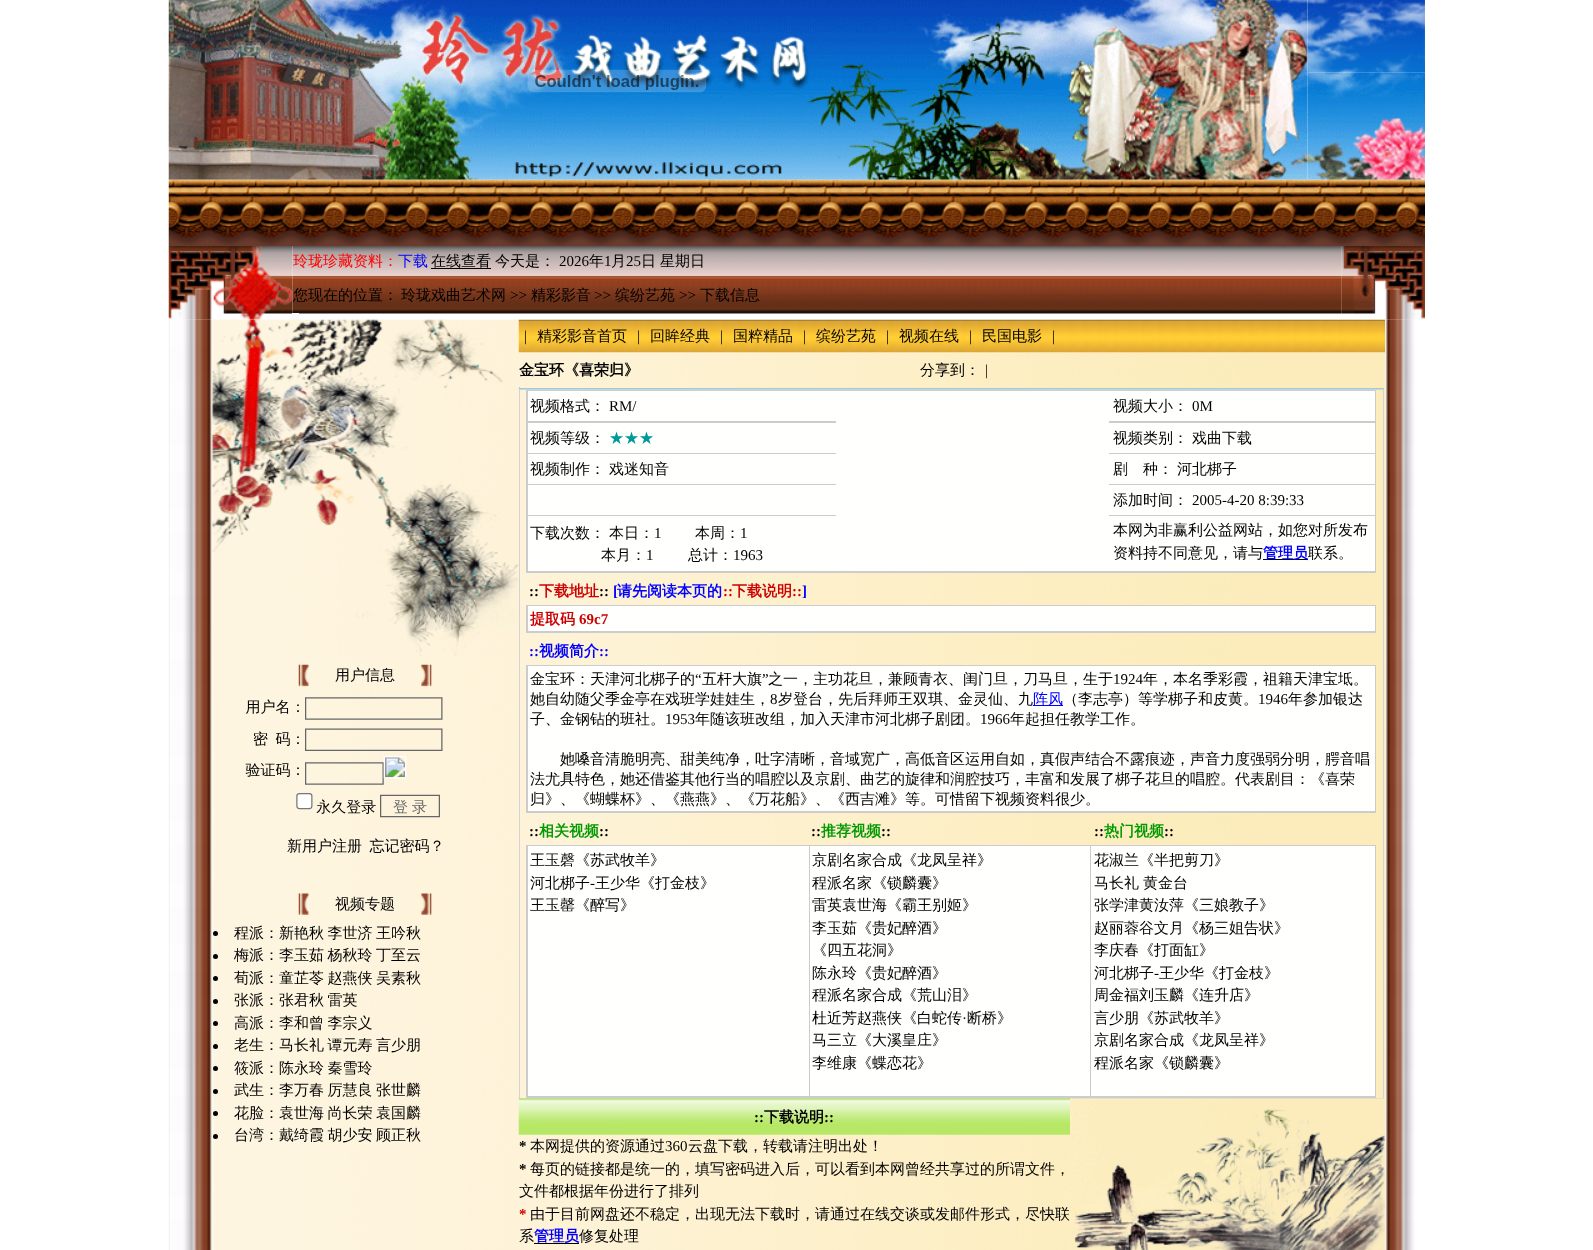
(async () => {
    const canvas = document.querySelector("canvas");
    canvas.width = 1593;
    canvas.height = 1250;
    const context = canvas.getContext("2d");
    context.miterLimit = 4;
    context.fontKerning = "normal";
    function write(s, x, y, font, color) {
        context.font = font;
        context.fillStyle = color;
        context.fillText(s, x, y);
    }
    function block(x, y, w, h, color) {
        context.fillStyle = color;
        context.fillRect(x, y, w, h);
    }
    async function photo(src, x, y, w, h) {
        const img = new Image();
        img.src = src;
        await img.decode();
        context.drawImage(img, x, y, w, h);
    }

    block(0, 0, 1593, 1250, "rgb(255, 255, 255)");
    await photo("media/1.png", 168, 0, 157, 180);
    await photo("media/2.png", 325, 0, 695, 180);
    await photo("media/3.png", 527, 69, 180, 24);
    await photo("media/4.png", 1020, 0, 288, 180);
    await photo("media/5.png", 1307, 0, 118, 73);
    await photo("media/6.png", 1307, 72, 118, 108);
    await photo("media/7.png", 168, 179, 1257, 67);
    await photo("media/8.png", 168, 246, 125, 74);
    await photo("media/9.png", 292, 246, 1050, 30);
    write("玲珑珍藏资料：", 293, 266, "500 15px WenQuanYi Zen Hei", "rgb(255, 0, 0)");
    write("下载", 398, 266, "500 15px WenQuanYi Zen Hei", "rgb(0, 0, 255)");
    write("在线查看", 431, 266, "500 15px WenQuanYi Zen Hei", "rgb(0, 0, 0)");
    block(431, 268, 60, 1, "rgb(0, 0, 0)");
    write("今天是：", 495, 266, "500 15px WenQuanYi Zen Hei", "rgb(0, 0, 0)");
    write("2026", 559, 266, "15px Liberation Serif", "rgb(0, 0, 0)");
    write("年", 589, 266, "500 15px WenQuanYi Zen Hei", "rgb(0, 0, 0)");
    write("1", 604, 266, "15px Liberation Serif", "rgb(0, 0, 0)");
    write("月", 611, 266, "500 15px WenQuanYi Zen Hei", "rgb(0, 0, 0)");
    write("25", 626, 266, "15px Liberation Serif", "rgb(0, 0, 0)");
    write("日", 641, 266, "500 15px WenQuanYi Zen Hei", "rgb(0, 0, 0)");
    write("星期日", 660, 266, "500 15px WenQuanYi Zen Hei", "rgb(0, 0, 0)");
    await photo("media/10.png", 292, 276, 1050, 38);
    write("您现在的位置：", 293, 300, "500 15px WenQuanYi Zen Hei", "rgb(0, 0, 0)");
    write("玲珑戏曲艺术网", 401, 300, "500 15px WenQuanYi Zen Hei", "rgb(0, 0, 0)");
    write(">>", 510, 300, "15px Liberation Serif", "rgb(0, 0, 0)");
    write("精彩影音", 531, 300, "500 15px WenQuanYi Zen Hei", "rgb(0, 0, 0)");
    write(">>", 594, 300, "15px Liberation Serif", "rgb(0, 0, 0)");
    write("缤纷艺苑", 615, 300, "500 15px WenQuanYi Zen Hei", "rgb(0, 0, 0)");
    write(">>", 679, 300, "15px Liberation Serif", "rgb(0, 0, 0)");
    write("下载信息", 700, 300, "500 15px WenQuanYi Zen Hei", "rgb(0, 0, 0)");
    await photo("media/11.png", 1341, 246, 84, 74);
    await photo("media/12.png", 168, 319, 1247, 931);
    await photo("media/13.png", 212, 319, 307, 338);
    block(292, 313, 7, 7, "rgb(251, 250, 250)");
    await photo("media/14.png", 212, 657, 97, 35);
    await photo("media/15.png", 308, 664, 1, 22);
    write("用户信息", 335, 680, "500 15px WenQuanYi Zen Hei", "rgb(0, 0, 0)");
    await photo("media/16.png", 421, 657, 31, 30);
    await photo("media/17.png", 245, 697, 198, 156);
    await photo("media/18.png", 212, 886, 97, 35);
    await photo("media/19.png", 308, 893, 1, 22);
    write("视频专题", 335, 909, "500 15px WenQuanYi Zen Hei", "rgb(0, 0, 0)");
    await photo("media/20.png", 421, 886, 31, 31);
    context.beginPath();
    context.arc(215.5, 933.5, 2.5, 0, Math.PI * 2);
    context.fill();
    context.wordSpacing = "-1px";
    write("程派：新艳秋 李世济 王吟秋", 234, 938, "500 15px WenQuanYi Zen Hei", "rgb(0, 0, 0)");
    context.beginPath();
    context.arc(215.5, 956.5, 2.5, 0, Math.PI * 2);
    context.fill();
    write("梅派：李玉茹 杨秋玲 丁至云", 234, 960, "500 15px WenQuanYi Zen Hei", "rgb(0, 0, 0)");
    context.beginPath();
    context.arc(215.5, 978.5, 2.5, 0, Math.PI * 2);
    context.fill();
    write("荀派：童芷苓 赵燕侠 吴素秋", 234, 983, "500 15px WenQuanYi Zen Hei", "rgb(0, 0, 0)");
    context.beginPath();
    context.arc(215.5, 1001.5, 2.5, 0, Math.PI * 2);
    context.fill();
    write("张派：张君秋 雷英", 234, 1005, "500 15px WenQuanYi Zen Hei", "rgb(0, 0, 0)");
    context.beginPath();
    context.arc(215.5, 1023.5, 2.5, 0, Math.PI * 2);
    context.fill();
    write("高派：李和曾 李宗义", 234, 1028, "500 15px WenQuanYi Zen Hei", "rgb(0, 0, 0)");
    context.beginPath();
    context.arc(215.5, 1046.5, 2.5, 0, Math.PI * 2);
    context.fill();
    write("老生：马长礼 谭元寿 言少朋", 234, 1050, "500 15px WenQuanYi Zen Hei", "rgb(0, 0, 0)");
    context.beginPath();
    context.arc(215.5, 1068.5, 2.5, 0, Math.PI * 2);
    context.fill();
    write("筱派：陈永玲 秦雪玲", 234, 1073, "500 15px WenQuanYi Zen Hei", "rgb(0, 0, 0)");
    context.beginPath();
    context.arc(215.5, 1091.5, 2.5, 0, Math.PI * 2);
    context.fill();
    write("武生：李万春 厉慧良 张世麟", 234, 1095, "500 15px WenQuanYi Zen Hei", "rgb(0, 0, 0)");
    context.beginPath();
    context.arc(215.5, 1113.5, 2.5, 0, Math.PI * 2);
    context.fill();
    write("花脸：袁世海 尚长荣 袁国麟", 234, 1118, "500 15px WenQuanYi Zen Hei", "rgb(0, 0, 0)");
    context.beginPath();
    context.arc(215.5, 1136.5, 2.5, 0, Math.PI * 2);
    context.fill();
    write("台湾：戴绮霞 胡少安 顾正秋", 234, 1140, "500 15px WenQuanYi Zen Hei", "rgb(0, 0, 0)");
    await photo("media/21.png", 518, 319, 867, 34);
    context.wordSpacing = "0px";
    write("|", 524, 341, "15px Liberation Serif", "rgb(0, 0, 0)");
    write("精彩影音首页", 537, 341, "500 15px WenQuanYi Zen Hei", "rgb(0, 0, 0)");
    write("|", 637, 341, "15px Liberation Serif", "rgb(0, 0, 0)");
    write("回眸经典", 650, 341, "500 15px WenQuanYi Zen Hei", "rgb(0, 0, 0)");
    write("|", 720, 341, "15px Liberation Serif", "rgb(0, 0, 0)");
    write("国粹精品", 733, 341, "500 15px WenQuanYi Zen Hei", "rgb(0, 0, 0)");
    write("|", 803, 341, "15px Liberation Serif", "rgb(0, 0, 0)");
    write("缤纷艺苑", 816, 341, "500 15px WenQuanYi Zen Hei", "rgb(0, 0, 0)");
    write("|", 886, 341, "15px Liberation Serif", "rgb(0, 0, 0)");
    write("视频在线", 899, 341, "500 15px WenQuanYi Zen Hei", "rgb(0, 0, 0)");
    write("|", 969, 341, "15px Liberation Serif", "rgb(0, 0, 0)");
    write("民国电影", 982, 341, "500 15px WenQuanYi Zen Hei", "rgb(0, 0, 0)");
    write("|", 1052, 341, "15px Liberation Serif", "rgb(0, 0, 0)");
    write("金宝环《喜荣归》", 519, 375, "bold 15px WenQuanYi Zen Hei", "rgb(0, 0, 0)");
    write("分享到：", 920, 375, "500 15px WenQuanYi Zen Hei", "rgb(0, 0, 0)");
    write("|", 985, 375, "15px Liberation Serif", "rgb(0, 0, 0)");
    block(519, 388, 865, 1, "rgb(148, 207, 222)");
    await photo("media/22.png", 518, 387, 2, 2);
    context.strokeStyle = "rgb(210, 211, 217)";
    context.strokeRect(519.5, 389.5, 864, 709);
    block(526, 390, 850, 183, "rgb(204, 204, 204)");
    block(528, 391, 847, 30, "rgb(255, 255, 254)");
    write("视频格式：", 530, 411, "500 15px WenQuanYi Zen Hei", "rgb(0, 0, 0)");
    write("RM/", 609, 411, "15px Liberation Serif", "rgb(0, 0, 0)");
    write("视频大小：", 1113, 411, "500 15px WenQuanYi Zen Hei", "rgb(0, 0, 0)");
    write("0M", 1192, 411, "15px Liberation Serif", "rgb(0, 0, 0)");
    block(836, 421, 273, 95, "rgb(255, 255, 254)");
    block(528, 423, 847, 30, "rgb(255, 255, 254)");
    write("视频等级：", 530, 443, "500 15px WenQuanYi Zen Hei", "rgb(0, 0, 0)");
    write("★★★", 609, 443, "500 15px WenQuanYi Zen Hei", "rgb(0, 153, 153)");
    write("视频类别：", 1113, 443, "500 15px WenQuanYi Zen Hei", "rgb(0, 0, 0)");
    write("戏曲下载", 1192, 443, "500 15px WenQuanYi Zen Hei", "rgb(0, 0, 0)");
    block(528, 454, 847, 30, "rgb(255, 255, 254)");
    write("视频制作：", 530, 474, "500 15px WenQuanYi Zen Hei", "rgb(0, 0, 0)");
    write("戏迷知音", 609, 474, "500 15px WenQuanYi Zen Hei", "rgb(0, 0, 0)");
    write("剧", 1113, 474, "500 15px WenQuanYi Zen Hei", "rgb(0, 0, 0)");
    write("种：", 1143, 474, "500 15px WenQuanYi Zen Hei", "rgb(0, 0, 0)");
    write("河北梆子", 1177, 474, "500 15px WenQuanYi Zen Hei", "rgb(0, 0, 0)");
    block(528, 485, 847, 30, "rgb(255, 255, 254)");
    write("添加时间：", 1113, 505, "500 15px WenQuanYi Zen Hei", "rgb(0, 0, 0)");
    write("2005-4-20 8:39:33", 1192, 505, "15px Liberation Serif", "rgb(0, 0, 0)");
    block(528, 516, 847, 55, "rgb(255, 255, 254)");
    write("下载次数：", 530, 538, "500 15px WenQuanYi Zen Hei", "rgb(0, 0, 0)");
    write("本日：", 609, 538, "500 15px WenQuanYi Zen Hei", "rgb(0, 0, 0)");
    write("1", 654, 538, "15px Liberation Serif", "rgb(0, 0, 0)");
    write("本周：", 695, 538, "500 15px WenQuanYi Zen Hei", "rgb(0, 0, 0)");
    write("1", 740, 538, "15px Liberation Serif", "rgb(0, 0, 0)");
    write("本月：", 601, 560, "500 15px WenQuanYi Zen Hei", "rgb(0, 0, 0)");
    write("1", 646, 560, "15px Liberation Serif", "rgb(0, 0, 0)");
    write("总计：", 688, 560, "500 15px WenQuanYi Zen Hei", "rgb(0, 0, 0)");
    write("1963", 733, 560, "15px Liberation Serif", "rgb(0, 0, 0)");
    write("本网为非赢利公益网站，如您对所发布", 1113, 535, "500 15px WenQuanYi Zen Hei", "rgb(0, 0, 0)");
    write("资料持不同意见，请与", 1113, 558, "500 15px WenQuanYi Zen Hei", "rgb(0, 0, 0)");
    block(1263, 559, 45, 1, "rgb(0, 0, 0)");
    write("管理员", 1263, 558, "bold 15px WenQuanYi Zen Hei", "rgb(0, 0, 255)");
    write("联系。", 1308, 558, "500 15px WenQuanYi Zen Hei", "rgb(0, 0, 0)");
    write("::", 529, 596, "bold 15px Liberation Serif", "rgb(0, 0, 0)");
    write("下载地址", 539, 596, "bold 15px WenQuanYi Zen Hei", "rgb(204, 0, 0)");
    write("::", 599, 596, "bold 15px Liberation Serif", "rgb(0, 0, 0)");
    write("[", 613, 596, "bold 15px Liberation Serif", "rgb(0, 0, 255)");
    write("请先阅读本页的", 617, 596, "bold 15px WenQuanYi Zen Hei", "rgb(0, 0, 255)");
    write("::", 723, 596, "bold 15px Liberation Serif", "rgb(204, 0, 0)");
    write("下载说明", 732, 596, "bold 15px WenQuanYi Zen Hei", "rgb(204, 0, 0)");
    write("::", 792, 596, "bold 15px Liberation Serif", "rgb(204, 0, 0)");
    write("]", 802, 596, "bold 15px Liberation Serif", "rgb(0, 0, 255)");
    block(526, 605, 850, 28, "rgb(204, 204, 204)");
    block(528, 606, 847, 25, "rgb(255, 255, 254)");
    write("提取码", 530, 624, "bold 15px WenQuanYi Zen Hei", "rgb(204, 0, 0)");
    write("69c7", 579, 624, "bold 15px Liberation Serif", "rgb(204, 0, 0)");
    write("::", 529, 656, "bold 15px Liberation Serif", "rgb(0, 0, 255)");
    write("视频简介", 539, 656, "bold 15px WenQuanYi Zen Hei", "rgb(0, 0, 255)");
    write("::", 599, 656, "bold 15px Liberation Serif", "rgb(0, 0, 255)");
    block(526, 665, 850, 148, "rgb(204, 204, 204)");
    block(528, 666, 847, 145, "rgb(255, 255, 254)");
    write("金宝环：天津河北梆子的", 530, 684, "500 15px WenQuanYi Zen Hei", "rgb(0, 0, 0)");
    write("“", 695, 684, "15px Liberation Serif", "rgb(0, 0, 0)");
    write("五杆大旗", 702, 684, "500 15px WenQuanYi Zen Hei", "rgb(0, 0, 0)");
    write("”", 762, 684, "15px Liberation Serif", "rgb(0, 0, 0)");
    write("之一，主功花旦，兼顾青衣、闺门旦，刀马旦，生于", 768, 684, "500 15px WenQuanYi Zen Hei", "rgb(0, 0, 0)");
    write("1924", 1113, 684, "15px Liberation Serif", "rgb(0, 0, 0)");
    write("年，本名季彩霞，祖籍天津宝坻。", 1143, 684, "500 15px WenQuanYi Zen Hei", "rgb(0, 0, 0)");
    write("她自幼随父季金亭在戏班学娃娃生，", 530, 704, "500 15px WenQuanYi Zen Hei", "rgb(0, 0, 0)");
    write("8", 770, 704, "15px Liberation Serif", "rgb(0, 0, 0)");
    write("岁登台，先后拜师王双琪、金灵仙、九", 778, 704, "500 15px WenQuanYi Zen Hei", "rgb(0, 0, 0)");
    block(1033, 705, 30, 1, "rgb(0, 0, 255)");
    write("阵风", 1033, 704, "500 15px WenQuanYi Zen Hei", "rgb(0, 0, 255)");
    write("（李志亭）等学梆子和皮黄。", 1063, 704, "500 15px WenQuanYi Zen Hei", "rgb(0, 0, 0)");
    write("1946", 1258, 704, "15px Liberation Serif", "rgb(0, 0, 0)");
    write("年参加银达", 1288, 704, "500 15px WenQuanYi Zen Hei", "rgb(0, 0, 0)");
    write("子、金钢钻的班社。", 530, 724, "500 15px WenQuanYi Zen Hei", "rgb(0, 0, 0)");
    write("1953", 665, 724, "15px Liberation Serif", "rgb(0, 0, 0)");
    write("年随该班改组，加入天津市河北梆子剧团。", 695, 724, "500 15px WenQuanYi Zen Hei", "rgb(0, 0, 0)");
    write("1966", 980, 724, "15px Liberation Serif", "rgb(0, 0, 0)");
    write("年起担任教学工作。", 1010, 724, "500 15px WenQuanYi Zen Hei", "rgb(0, 0, 0)");
    write("她嗓音清脆明亮、甜美纯净，吐字清晰，音域宽广，高低音区运用自如，真假声结合不露痕迹，声音力度强弱分明，腭音唱", 560, 764, "500 15px WenQuanYi Zen Hei", "rgb(0, 0, 0)");
    write("法尤具特色，她还借鉴其他行当的唱腔以及京剧、曲艺的旋律和润腔技巧，丰富和发展了梆子花旦的唱腔。代表剧目：《喜荣", 530, 784, "500 15px WenQuanYi Zen Hei", "rgb(0, 0, 0)");
    write("归》、《蝴蝶杯》、《燕燕》、《万花船》、《西吉滩》等。可惜留下视频资料很少。", 530, 804, "500 15px WenQuanYi Zen Hei", "rgb(0, 0, 0)");
    write("::", 529, 836, "bold 15px Liberation Serif", "rgb(0, 0, 0)");
    write("相关视频", 539, 836, "bold 15px WenQuanYi Zen Hei", "rgb(0, 153, 0)");
    write("::", 599, 836, "bold 15px Liberation Serif", "rgb(0, 0, 0)");
    write("::", 811, 836, "bold 15px Liberation Serif", "rgb(0, 0, 0)");
    write("推荐视频", 821, 836, "bold 15px WenQuanYi Zen Hei", "rgb(0, 153, 0)");
    write("::", 881, 836, "bold 15px Liberation Serif", "rgb(0, 0, 0)");
    write("::", 1094, 836, "bold 15px Liberation Serif", "rgb(0, 0, 0)");
    write("热门视频", 1104, 836, "bold 15px WenQuanYi Zen Hei", "rgb(0, 153, 0)");
    write("::", 1164, 836, "bold 15px Liberation Serif", "rgb(0, 0, 0)");
    block(526, 845, 850, 253, "rgb(204, 204, 204)");
    block(528, 846, 281, 250, "rgb(255, 255, 254)");
    write("王玉磬《苏武牧羊》", 530, 865, "500 15px WenQuanYi Zen Hei", "rgb(0, 0, 0)");
    write("河北梆子", 530, 888, "500 15px WenQuanYi Zen Hei", "rgb(0, 0, 0)");
    write("-", 590, 888, "15px Liberation Serif", "rgb(0, 0, 0)");
    write("王少华《打金枝》", 595, 888, "500 15px WenQuanYi Zen Hei", "rgb(0, 0, 0)");
    write("王玉罄《醉写》", 530, 910, "500 15px WenQuanYi Zen Hei", "rgb(0, 0, 0)");
    block(810, 846, 280, 250, "rgb(255, 255, 254)");
    write("京剧名家合成《龙凤呈祥》", 812, 865, "500 15px WenQuanYi Zen Hei", "rgb(0, 0, 0)");
    write("程派名家《锁麟囊》", 812, 888, "500 15px WenQuanYi Zen Hei", "rgb(0, 0, 0)");
    write("雷英袁世海《霸王别姬》", 812, 910, "500 15px WenQuanYi Zen Hei", "rgb(0, 0, 0)");
    write("李玉茹《贵妃醉酒》", 812, 933, "500 15px WenQuanYi Zen Hei", "rgb(0, 0, 0)");
    write("《四五花洞》", 812, 955, "500 15px WenQuanYi Zen Hei", "rgb(0, 0, 0)");
    write("陈永玲《贵妃醉酒》", 812, 978, "500 15px WenQuanYi Zen Hei", "rgb(0, 0, 0)");
    write("程派名家合成《荒山泪》", 812, 1000, "500 15px WenQuanYi Zen Hei", "rgb(0, 0, 0)");
    write("杜近芳赵燕侠《白蛇传", 812, 1023, "500 15px WenQuanYi Zen Hei", "rgb(0, 0, 0)");
    write("·", 962, 1023, "15px Liberation Serif", "rgb(0, 0, 0)");
    write("断桥》", 967, 1023, "500 15px WenQuanYi Zen Hei", "rgb(0, 0, 0)");
    write("马三立《大溪皇庄》", 812, 1045, "500 15px WenQuanYi Zen Hei", "rgb(0, 0, 0)");
    write("李维康《蝶恋花》", 812, 1068, "500 15px WenQuanYi Zen Hei", "rgb(0, 0, 0)");
    block(1091, 846, 284, 250, "rgb(255, 255, 254)");
    write("花淑兰《半把剪刀》", 1094, 865, "500 15px WenQuanYi Zen Hei", "rgb(0, 0, 0)");
    write("马长礼", 1094, 888, "500 15px WenQuanYi Zen Hei", "rgb(0, 0, 0)");
    write("黄金台", 1143, 888, "500 15px WenQuanYi Zen Hei", "rgb(0, 0, 0)");
    write("张学津黄汝萍《三娘教子》", 1094, 910, "500 15px WenQuanYi Zen Hei", "rgb(0, 0, 0)");
    write("赵丽蓉谷文月《杨三姐告状》", 1094, 933, "500 15px WenQuanYi Zen Hei", "rgb(0, 0, 0)");
    write("李庆春《打面缸》", 1094, 955, "500 15px WenQuanYi Zen Hei", "rgb(0, 0, 0)");
    write("河北梆子", 1094, 978, "500 15px WenQuanYi Zen Hei", "rgb(0, 0, 0)");
    write("-", 1154, 978, "15px Liberation Serif", "rgb(0, 0, 0)");
    write("王少华《打金枝》", 1159, 978, "500 15px WenQuanYi Zen Hei", "rgb(0, 0, 0)");
    write("周金福刘玉麟《连升店》", 1094, 1000, "500 15px WenQuanYi Zen Hei", "rgb(0, 0, 0)");
    write("言少朋《苏武牧羊》", 1094, 1023, "500 15px WenQuanYi Zen Hei", "rgb(0, 0, 0)");
    write("京剧名家合成《龙凤呈祥》", 1094, 1045, "500 15px WenQuanYi Zen Hei", "rgb(0, 0, 0)");
    write("程派名家《锁麟囊》", 1094, 1068, "500 15px WenQuanYi Zen Hei", "rgb(0, 0, 0)");
    await photo("media/23.png", 518, 1098, 552, 37);
    write("::", 754, 1122, "bold 15px Liberation Serif", "rgb(0, 0, 0)");
    write("下载说明", 764, 1122, "bold 15px WenQuanYi Zen Hei", "rgb(0, 0, 0)");
    write("::", 824, 1122, "bold 15px Liberation Serif", "rgb(0, 0, 0)");
    await photo("media/24.png", 1070, 1098, 315, 152);
    write("*", 519, 1151, "bold 15px Liberation Serif", "rgb(0, 0, 0)");
    write("本网提供的资源通过", 530, 1151, "500 15px WenQuanYi Zen Hei", "rgb(0, 0, 0)");
    write("360", 665, 1151, "15px Liberation Serif", "rgb(0, 0, 0)");
    write("云盘下载，转载请注明出处！", 688, 1151, "500 15px WenQuanYi Zen Hei", "rgb(0, 0, 0)");
    write("*", 519, 1174, "bold 15px Liberation Serif", "rgb(0, 0, 0)");
    write("每页的链接都是统一的，填写密码进入后，可以看到本网曾经共享过的所谓文件，", 530, 1174, "500 15px WenQuanYi Zen Hei", "rgb(0, 0, 0)");
    write("文件都根据年份进行了排列", 519, 1196, "500 15px WenQuanYi Zen Hei", "rgb(0, 0, 0)");
    write("*", 519, 1219, "bold 15px Liberation Serif", "rgb(204, 0, 0)");
    write("由于目前网盘还不稳定，出现无法下载时，请通过在线交谈或发邮件形式，尽快联", 530, 1219, "500 15px WenQuanYi Zen Hei", "rgb(0, 0, 0)");
    write("系", 519, 1241, "500 15px WenQuanYi Zen Hei", "rgb(0, 0, 0)");
    block(534, 1243, 45, 1, "rgb(0, 0, 0)");
    write("管理员", 534, 1241, "bold 15px WenQuanYi Zen Hei", "rgb(0, 0, 255)");
    write("修复处理", 579, 1241, "500 15px WenQuanYi Zen Hei", "rgb(0, 0, 0)");
})();
